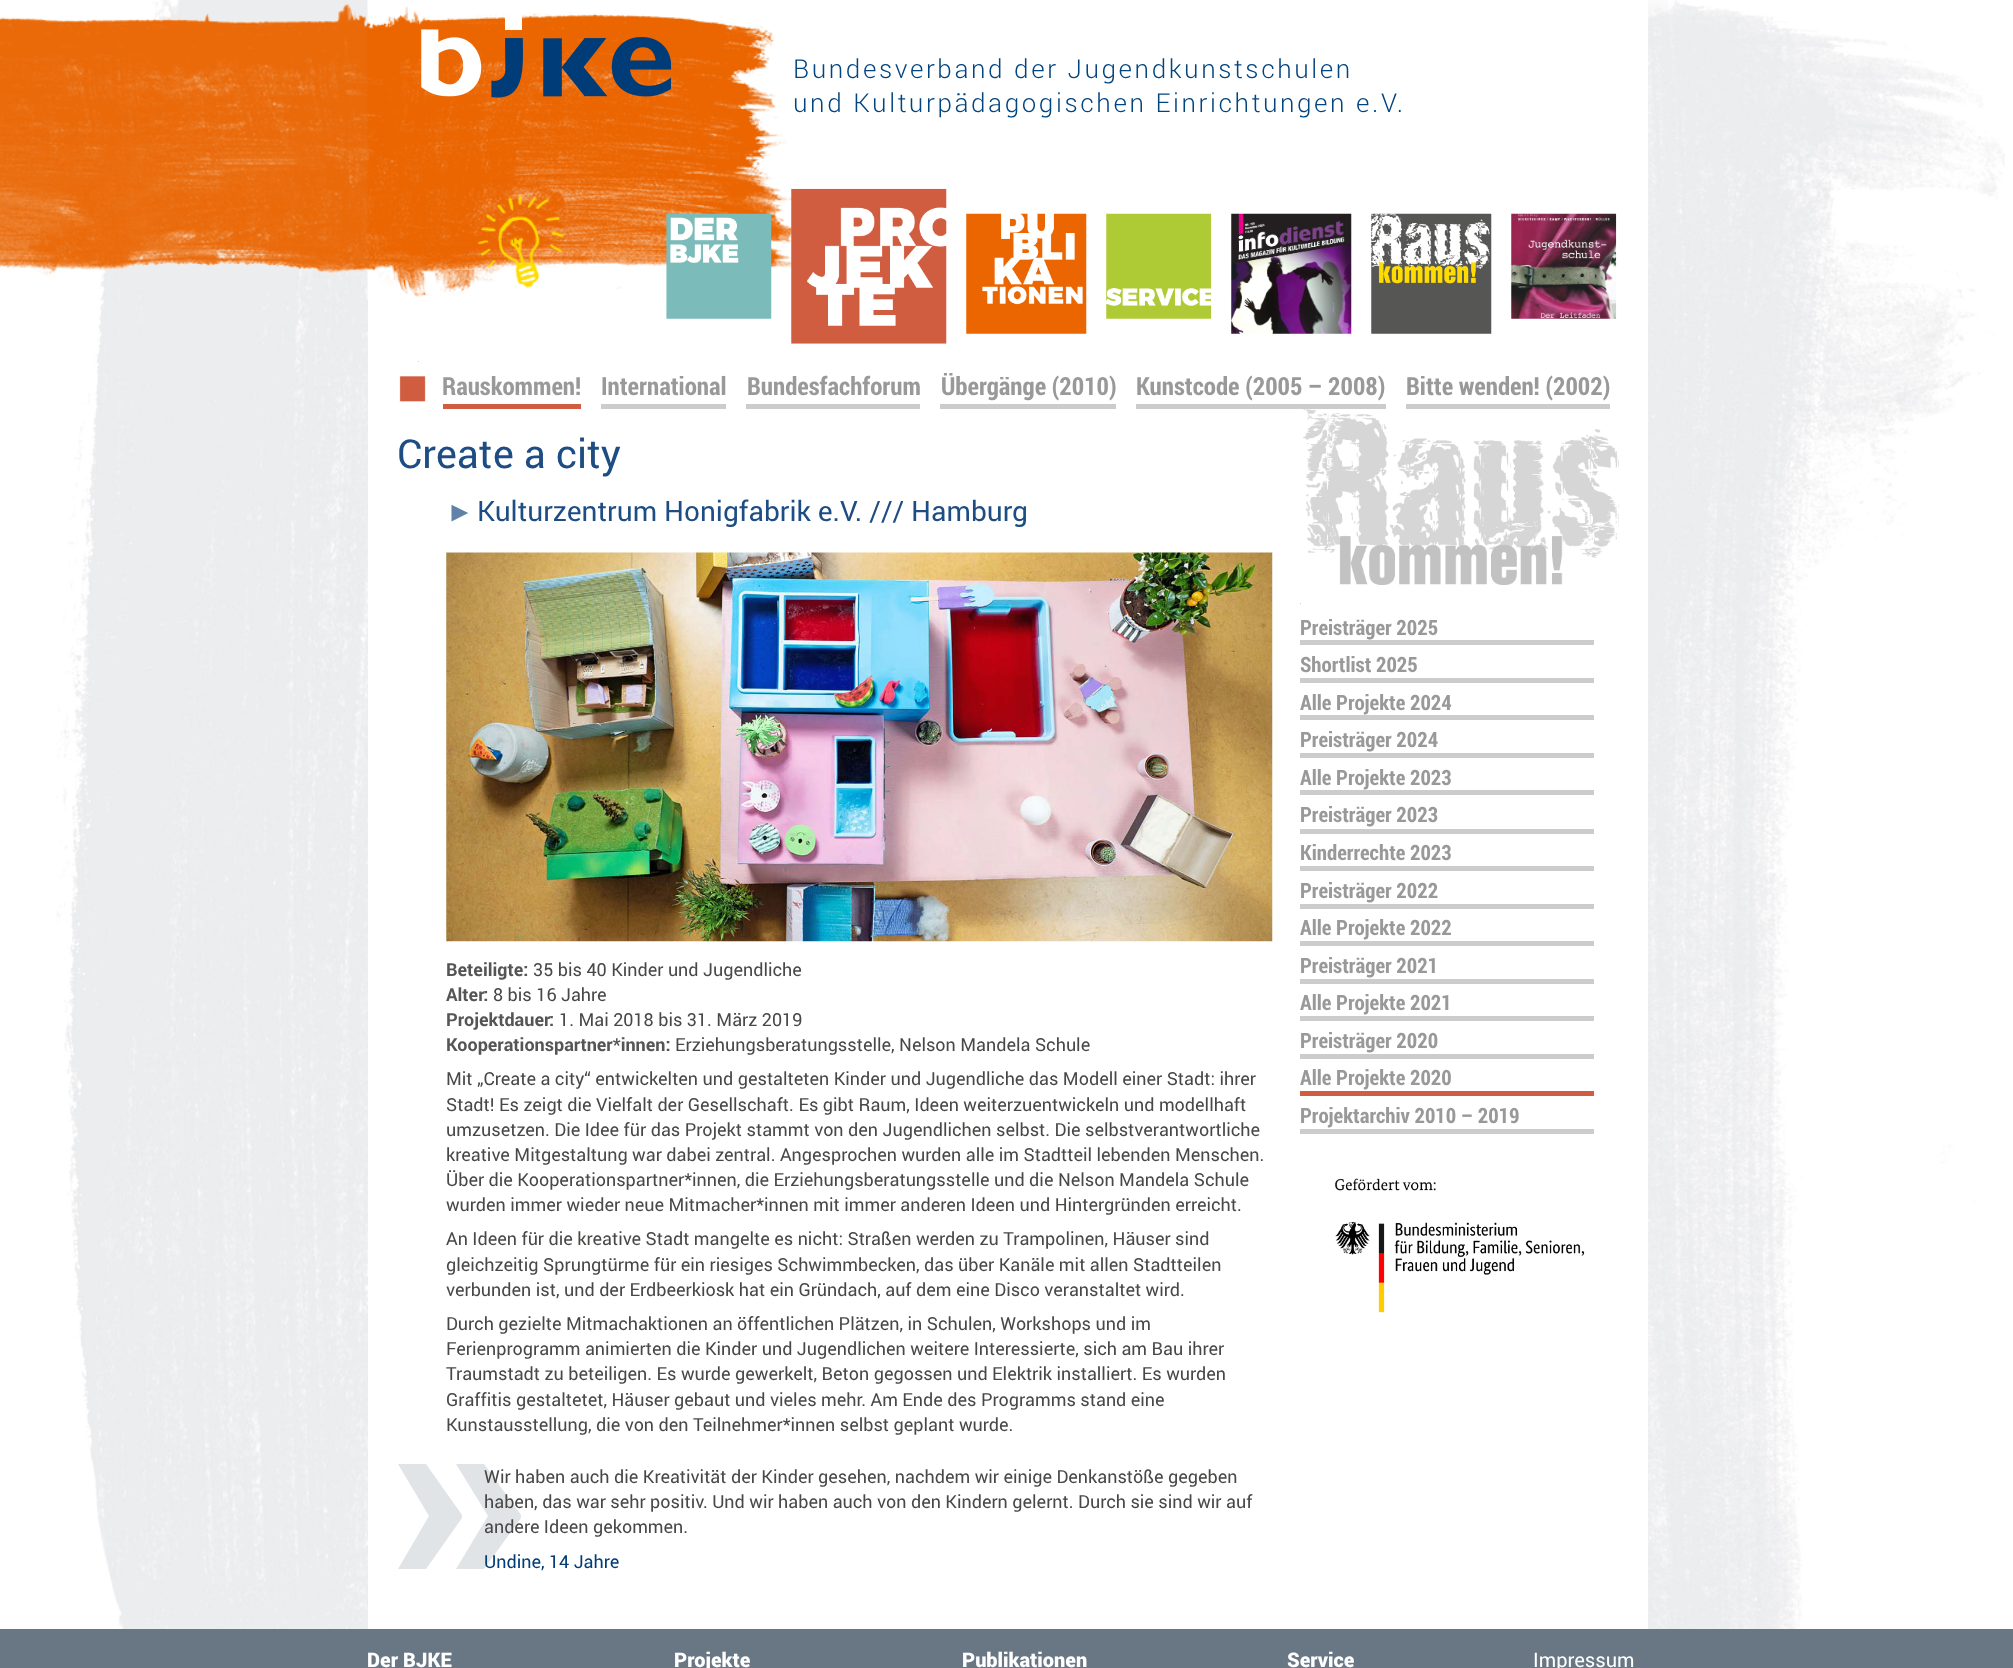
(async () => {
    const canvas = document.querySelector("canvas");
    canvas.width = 2013;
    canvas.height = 1668;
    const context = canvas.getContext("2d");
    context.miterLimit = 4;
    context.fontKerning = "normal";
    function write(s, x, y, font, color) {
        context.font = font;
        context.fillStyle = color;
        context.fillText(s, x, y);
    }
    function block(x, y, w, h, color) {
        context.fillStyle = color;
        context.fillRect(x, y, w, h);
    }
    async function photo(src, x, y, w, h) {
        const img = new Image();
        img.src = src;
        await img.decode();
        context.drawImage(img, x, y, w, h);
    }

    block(0, 0, 2013, 1668, "rgb(255, 255, 255)");
    await photo("media/1.png", 56, 0, 1949, 1629);
    await photo("media/2.png", 0, 3, 368, 274);
    block(368, 0, 1280, 1629, "rgb(255, 255, 255)");
    await photo("media/3.png", 367, 0, 439, 300);
    await photo("media/4.png", 421, 15, 250, 83);
    context.letterSpacing = "2.6px";
    write("Bundesverband der Jugendkunstschulen", 793, 78, "300 26px Roboto", "rgb(0, 68, 128)");
    write("und Kulturpädagogischen Einrichtungen e.V.", 793, 112, "300 26px Roboto", "rgb(0, 68, 128)");
    await photo("media/5.png", 666, 213, 106, 106);
    await photo("media/6.png", 791, 188, 156, 156);
    await photo("media/7.png", 966, 213, 121, 121);
    await photo("media/8.png", 1106, 213, 106, 106);
    await photo("media/9.png", 1231, 213, 121, 121);
    await photo("media/10.png", 1371, 213, 121, 121);
    await photo("media/11.png", 1511, 213, 106, 106);
    block(418, 361, 1, 1, "rgb(204, 204, 204)");
    await photo("media/12.png", 399, 376, 27, 26);
    context.letterSpacing = "0px";
    write("Rauskommen!", 442, 395, "bold 25px Roboto Condensed", "rgb(153, 153, 153)");
    block(443, 404, 138, 5, "rgb(209, 93, 65)");
    write("International", 601, 395, "bold 25px Roboto Condensed", "rgb(153, 153, 153)");
    block(601, 404, 125, 5, "rgb(204, 204, 204)");
    write("Bundesfachforum", 747, 395, "bold 25px Roboto Condensed", "rgb(153, 153, 153)");
    block(746, 404, 174, 5, "rgb(204, 204, 204)");
    write("Übergänge (2010)", 941, 395, "bold 25px Roboto Condensed", "rgb(153, 153, 153)");
    block(940, 404, 176, 5, "rgb(204, 204, 204)");
    write("Kunstcode (2005 – 2008)", 1136, 395, "bold 25px Roboto Condensed", "rgb(153, 153, 153)");
    block(1136, 404, 250, 5, "rgb(204, 204, 204)");
    write("Bitte wenden! (2002)", 1406, 395, "bold 25px Roboto Condensed", "rgb(153, 153, 153)");
    block(1406, 404, 204, 5, "rgb(204, 204, 204)");
    write("Create a city", 397, 468, "40px Roboto", "rgb(29, 77, 130)");
    write("►", 446, 521, "28px Liberation Sans", "rgb(97, 130, 168)");
    write("Kulturzentrum Honigfabrik e.V. /// Hamburg", 477, 521, "28px Roboto", "rgb(29, 77, 130)");
    await photo("media/13.png", 446, 552, 827, 390);
    write("Beteiligte:", 446, 976, "bold 18px Roboto", "rgb(85, 85, 85)");
    write("35 bis 40 Kinder und Jugendliche", 533, 976, "18px Roboto", "rgb(72, 72, 71)");
    write("Alter:", 446, 1001, "bold 18px Roboto", "rgb(85, 85, 85)");
    write("8 bis 16 Jahre", 493, 1001, "18px Roboto", "rgb(72, 72, 71)");
    write("Projektdauer:", 446, 1026, "bold 18px Roboto", "rgb(85, 85, 85)");
    write("1. Mai 2018 bis 31. März 2019", 559, 1026, "18px Roboto", "rgb(72, 72, 71)");
    write("Kooperationspartner*innen:", 446, 1051, "bold 18px Roboto", "rgb(85, 85, 85)");
    write("Erziehungsberatungsstelle, Nelson Mandela Schule", 675, 1051, "18px Roboto", "rgb(72, 72, 71)");
    write("Mit „Create a city“ entwickelten und gestalteten Kinder und Jugendliche das Modell einer Stadt: ihrer", 446, 1085, "18px Roboto", "rgb(72, 72, 71)");
    write("Stadt! Es zeigt die Vielfalt der Gesellschaft. Es gibt Raum, Ideen weiterzuentwickeln und modellhaft", 446, 1111, "18px Roboto", "rgb(72, 72, 71)");
    write("umzusetzen. Die Idee für das Projekt stammt von den Jugendlichen selbst. Die selbstverantwortliche", 446, 1136, "18px Roboto", "rgb(72, 72, 71)");
    write("kreative Mitgestaltung war dabei zentral. Angesprochen wurden alle im Stadtteil lebenden Menschen.", 446, 1161, "18px Roboto", "rgb(72, 72, 71)");
    write("Über die Kooperationspartner*innen, die Erziehungsberatungsstelle und die Nelson Mandela Schule", 446, 1186, "18px Roboto", "rgb(72, 72, 71)");
    write("wurden immer wieder neue Mitmacher*innen mit immer anderen Ideen und Hintergründen erreicht.", 446, 1211, "18px Roboto", "rgb(72, 72, 71)");
    write("An Ideen für die kreative Stadt mangelte es nicht: Straßen werden zu Trampolinen, Häuser sind", 446, 1245, "18px Roboto", "rgb(72, 72, 71)");
    write("gleichzeitig Sprungtürme für ein riesiges Schwimmbecken, das über Kanäle mit allen Stadtteilen", 446, 1271, "18px Roboto", "rgb(72, 72, 71)");
    write("verbunden ist, und der Erdbeerkiosk hat ein Gründach, auf dem eine Disco veranstaltet wird.", 446, 1296, "18px Roboto", "rgb(72, 72, 71)");
    write("Durch gezielte Mitmachaktionen an öffentlichen Plätzen, in Schulen, Workshops und im", 446, 1330, "18px Roboto", "rgb(72, 72, 71)");
    write("Ferienprogramm animierten die Kinder und Jugendlichen weitere Interessierte, sich am Bau ihrer", 446, 1355, "18px Roboto", "rgb(72, 72, 71)");
    write("Traumstadt zu beteiligen. Es wurde gewerkelt, Beton gegossen und Elektrik installiert. Es wurden", 446, 1380, "18px Roboto", "rgb(72, 72, 71)");
    write("Graffitis gestaltetet, Häuser gebaut und vieles mehr. Am Ende des Programms stand eine", 446, 1406, "18px Roboto", "rgb(72, 72, 71)");
    write("Kunstausstellung, die von den Teilnehmer*innen selbst geplant wurde.", 446, 1431, "18px Roboto", "rgb(72, 72, 71)");
    context.fillStyle = "rgb(224, 228, 231)";
    context.beginPath();
    context.moveTo(426, 1464);
    context.lineTo(462, 1515);
    context.lineTo(462, 1518);
    context.lineTo(426, 1569);
    context.lineTo(398, 1569);
    context.lineTo(429, 1516);
    context.lineTo(398, 1464);
    context.closePath();
    context.moveTo(484, 1464);
    context.lineTo(521, 1515);
    context.lineTo(521, 1518);
    context.lineTo(484, 1569);
    context.lineTo(456, 1569);
    context.lineTo(488, 1516);
    context.lineTo(456, 1464);
    context.closePath();
    context.fill();
    write("Wir haben auch die Kreativität der Kinder gesehen, nachdem wir einige Denkanstöße gegeben", 484, 1483, "18px Roboto", "rgb(72, 72, 71)");
    write("haben, das war sehr positiv. Und wir haben auch von den Kindern gelernt. Durch sie sind wir auf", 484, 1508, "18px Roboto", "rgb(72, 72, 71)");
    write("andere Ideen gekommen.", 484, 1533, "18px Roboto", "rgb(72, 72, 71)");
    write("Undine, 14 Jahre", 484, 1568, "18px Roboto", "rgb(0, 60, 120)");
    await photo("media/14.png", 1302, 409, 317, 176);
    block(1300, 603, 1, 1, "rgb(204, 204, 204)");
    write("Preisträger 2025", 1300, 635, "bold 21px Roboto Condensed", "rgb(153, 153, 153)");
    block(1300, 640, 294, 5, "rgb(204, 204, 204)");
    write("Shortlist 2025", 1300, 672, "bold 21px Roboto Condensed", "rgb(153, 153, 153)");
    block(1300, 678, 294, 5, "rgb(204, 204, 204)");
    write("Alle Projekte 2024", 1300, 710, "bold 21px Roboto Condensed", "rgb(153, 153, 153)");
    block(1300, 715, 294, 5, "rgb(204, 204, 204)");
    write("Preisträger 2024", 1300, 747, "bold 21px Roboto Condensed", "rgb(153, 153, 153)");
    block(1300, 753, 294, 5, "rgb(204, 204, 204)");
    write("Alle Projekte 2023", 1300, 785, "bold 21px Roboto Condensed", "rgb(153, 153, 153)");
    block(1300, 790, 294, 5, "rgb(204, 204, 204)");
    write("Preisträger 2023", 1300, 822, "bold 21px Roboto Condensed", "rgb(153, 153, 153)");
    block(1300, 829, 294, 5, "rgb(204, 204, 204)");
    write("Kinderrechte 2023", 1300, 860, "bold 21px Roboto Condensed", "rgb(153, 153, 153)");
    block(1300, 866, 294, 5, "rgb(204, 204, 204)");
    write("Preisträger 2022", 1300, 898, "bold 21px Roboto Condensed", "rgb(153, 153, 153)");
    block(1300, 904, 294, 5, "rgb(204, 204, 204)");
    write("Alle Projekte 2022", 1300, 935, "bold 21px Roboto Condensed", "rgb(153, 153, 153)");
    block(1300, 941, 294, 5, "rgb(204, 204, 204)");
    write("Preisträger 2021", 1300, 973, "bold 21px Roboto Condensed", "rgb(153, 153, 153)");
    block(1300, 979, 294, 5, "rgb(204, 204, 204)");
    write("Alle Projekte 2021", 1300, 1010, "bold 21px Roboto Condensed", "rgb(153, 153, 153)");
    block(1300, 1016, 294, 5, "rgb(204, 204, 204)");
    write("Preisträger 2020", 1300, 1048, "bold 21px Roboto Condensed", "rgb(153, 153, 153)");
    block(1300, 1054, 294, 5, "rgb(204, 204, 204)");
    write("Alle Projekte 2020", 1300, 1085, "bold 21px Roboto Condensed", "rgb(153, 153, 153)");
    block(1300, 1091, 294, 5, "rgb(209, 93, 65)");
    write("Projektarchiv 2010 – 2019", 1300, 1123, "bold 21px Roboto Condensed", "rgb(153, 153, 153)");
    block(1300, 1129, 294, 5, "rgb(204, 204, 204)");
    await photo("media/15.png", 1335, 1178, 250, 135);
    block(0, 1629, 2013, 39, "rgb(105, 119, 133)");
    write("Der BJKE", 367, 1667, "900 20px Roboto", "rgb(255, 255, 255)");
    write("Projekte", 674, 1667, "900 20px Roboto", "rgb(255, 255, 255)");
    write("Publikationen", 962, 1667, "900 20px Roboto", "rgb(255, 255, 255)");
    write("Service", 1287, 1667, "900 20px Roboto", "rgb(255, 255, 255)");
    write("Impressum", 1533, 1667, "20px Roboto", "rgb(255, 255, 255)");
})();
